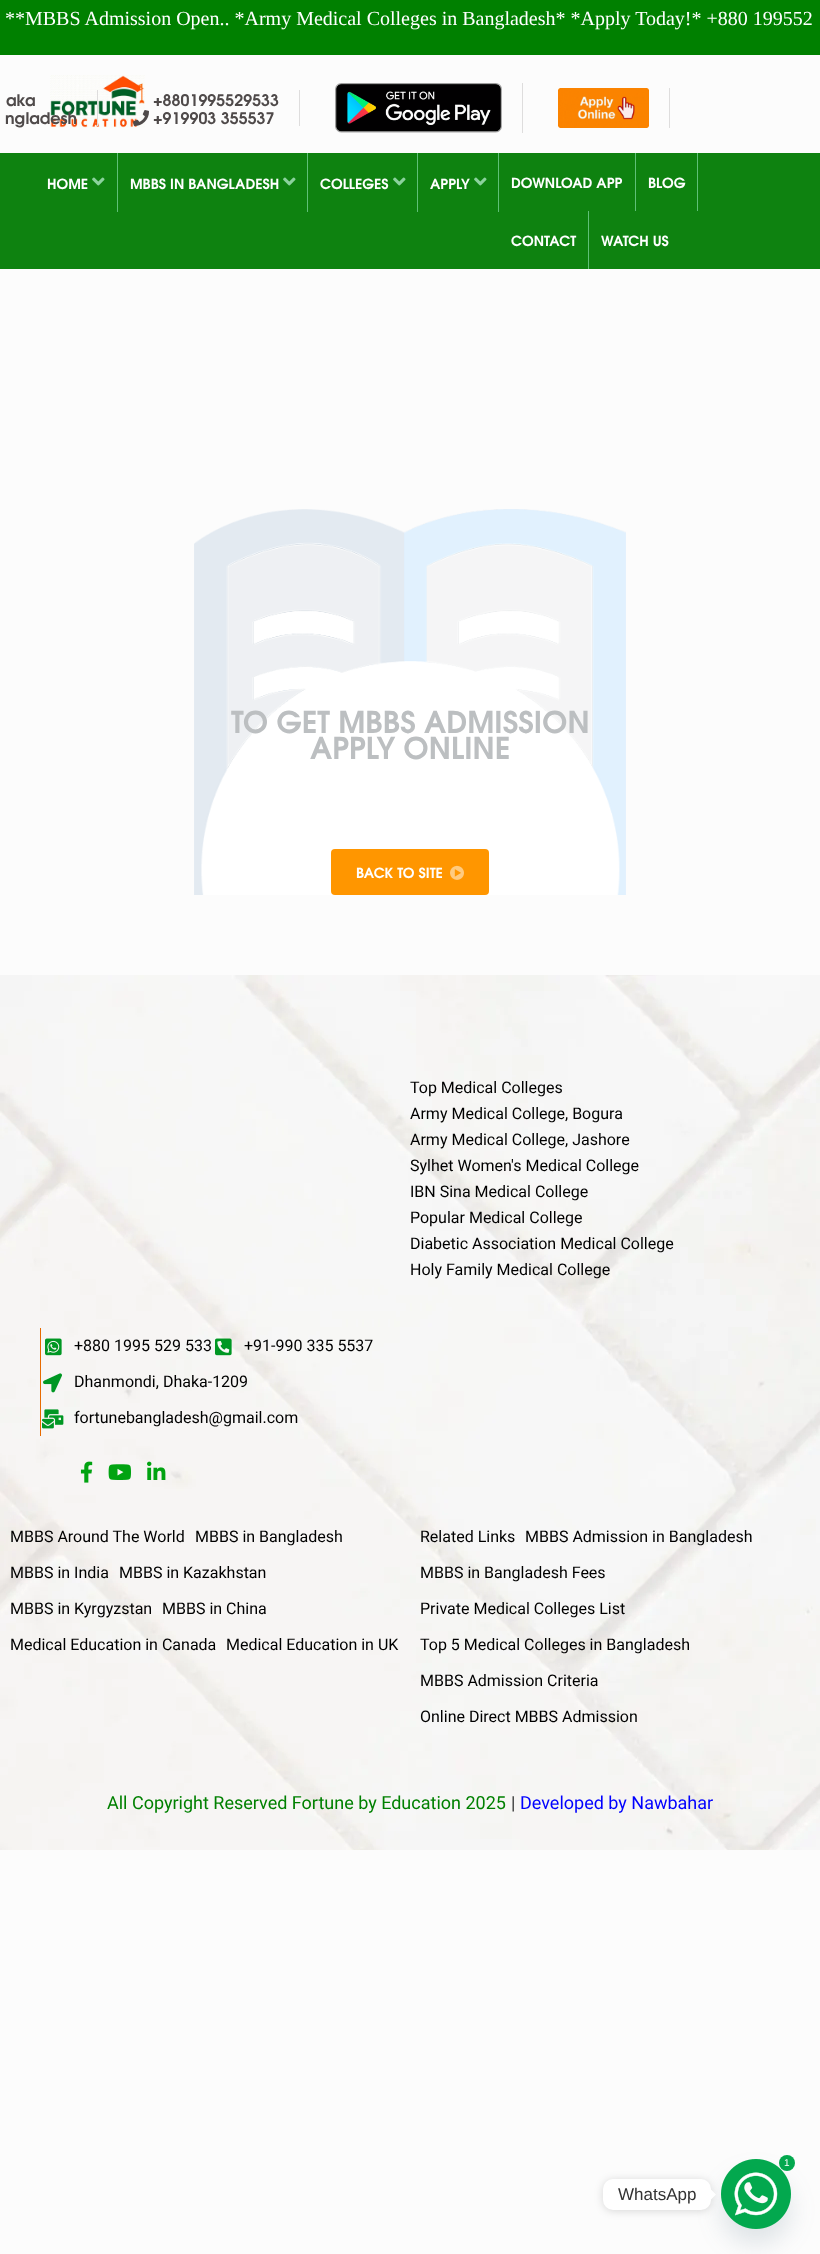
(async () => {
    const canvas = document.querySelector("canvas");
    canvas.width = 820;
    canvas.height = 2254;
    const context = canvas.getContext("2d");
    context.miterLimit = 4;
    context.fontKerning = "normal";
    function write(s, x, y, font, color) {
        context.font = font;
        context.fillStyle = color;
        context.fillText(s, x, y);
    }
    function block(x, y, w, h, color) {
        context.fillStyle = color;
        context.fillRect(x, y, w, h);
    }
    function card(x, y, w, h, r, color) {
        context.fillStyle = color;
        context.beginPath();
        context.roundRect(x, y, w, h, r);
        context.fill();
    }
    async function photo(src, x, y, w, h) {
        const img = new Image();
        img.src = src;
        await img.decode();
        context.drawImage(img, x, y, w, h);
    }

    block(0, 0, 820, 2254, "rgb(252, 252, 252)");
    block(0, 0, 820, 55, "rgb(0, 128, 0)");
    write("**MBBS Admission Open.. *Army Medical Colleges in Bangladesh* *Apply Today!* +880 199552", 5, 25, "20px Liberation Serif", "rgb(255, 255, 255)");
    await photo("media/1.png", 50, 75, 95, 53);
    block(97, 90, 1, 36, "rgb(222, 221, 221)");
    write("aka", 6, 106, "bold 16px TeX Gyre Adventor", "rgb(79, 74, 74)");
    write("ngladesh", 5, 124, "bold 16px TeX Gyre Adventor", "rgb(79, 74, 74)");
    block(299, 90, 1, 36, "rgb(222, 221, 221)");
    write("+8801995529533", 153, 106, "bold 16px TeX Gyre Adventor", "rgb(79, 74, 74)");
    await photo("media/2.png", 133, 110, 16, 16);
    write("+919903 355537", 153, 124, "bold 16px TeX Gyre Adventor", "rgb(79, 74, 74)");
    block(522, 83, 1, 50, "rgb(222, 221, 221)");
    await photo("media/3.png", 335, 83, 167, 50);
    block(669, 88, 1, 40, "rgb(222, 221, 221)");
    await photo("media/4.png", 558, 88, 91, 40);
    block(0, 153, 820, 116, "rgb(14, 130, 16)");
    block(117, 153, 1, 59, "rgb(95, 192, 120)");
    write("HOME", 47, 189, "bold 14px TeX Gyre Adventor", "rgb(255, 255, 255)");
    await photo("media/5.png", 92, 177, 13, 9);
    block(307, 153, 1, 59, "rgb(95, 192, 120)");
    write("MBBS IN BANGLADESH", 130, 189, "bold 14px TeX Gyre Adventor", "rgb(255, 255, 255)");
    await photo("media/5.png", 283, 177, 13, 9);
    block(417, 153, 1, 59, "rgb(95, 192, 120)");
    write("COLLEGES", 320, 189, "bold 14px TeX Gyre Adventor", "rgb(255, 255, 255)");
    await photo("media/5.png", 393, 177, 13, 9);
    block(498, 153, 1, 59, "rgb(95, 192, 120)");
    write("APPLY", 430, 189, "bold 14px TeX Gyre Adventor", "rgb(255, 255, 255)");
    await photo("media/5.png", 474, 177, 13, 9);
    block(635, 153, 1, 58, "rgb(95, 192, 120)");
    write("DOWNLOAD APP", 511, 188, "bold 14px TeX Gyre Adventor", "rgb(255, 255, 255)");
    block(697, 153, 1, 58, "rgb(95, 192, 120)");
    write("BLOG", 648, 188, "bold 14px TeX Gyre Adventor", "rgb(255, 255, 255)");
    block(588, 211, 1, 58, "rgb(95, 192, 120)");
    write("CONTACT", 511, 246, "bold 14px TeX Gyre Adventor", "rgb(255, 255, 255)");
    write("WATCH US", 601, 246, "bold 14px TeX Gyre Adventor", "rgb(255, 255, 255)");
    await photo("media/6.png", 194, 509, 432, 386);
    write("TO GET MBBS ADMISSION", 231, 733, "bold 30px TeX Gyre Adventor", "rgb(188, 191, 193)");
    write("APPLY ONLINE", 310, 759, "bold 30px TeX Gyre Adventor", "rgb(188, 191, 193)");
    card(331, 849, 158, 46, 4, "rgb(255, 150, 0)");
    write("BACK TO SITE", 356, 878, "bold 14px TeX Gyre Adventor", "rgb(255, 255, 255)");
    await photo("media/7.png", 450, 865, 14, 15);
    await photo("media/8.png", 0, 975, 820, 875);
    write("Top Medical Colleges", 410, 1093, "16px Roboto", "rgb(0, 0, 0)");
    write("Army Medical College, Bogura", 410, 1119, "16px Roboto", "rgb(0, 0, 0)");
    write("Army Medical College, Jashore", 410, 1145, "16px Roboto", "rgb(0, 0, 0)");
    write("Sylhet Women's Medical College", 410, 1171, "16px Roboto", "rgb(0, 0, 0)");
    write("IBN Sina Medical College", 410, 1197, "16px Roboto", "rgb(0, 0, 0)");
    write("Popular Medical College", 410, 1223, "16px Roboto", "rgb(0, 0, 0)");
    write("Diabetic Association Medical College", 410, 1249, "16px Roboto", "rgb(0, 0, 0)");
    write("Holy Family Medical College", 410, 1275, "16px Roboto", "rgb(0, 0, 0)");
    block(40, 1328, 1, 108, "rgb(231, 106, 0)");
    await photo("media/9.png", 45, 1338, 17, 18);
    write("+880 1995 529 533", 74, 1351, "16px Roboto", "rgb(0, 0, 0)");
    await photo("media/10.png", 215, 1338, 17, 18);
    write("+91-990 335 5537", 244, 1351, "16px Roboto", "rgb(0, 0, 0)");
    await photo("media/11.png", 43, 1373, 19, 20);
    write("Dhanmondi, Dhaka-1209", 74, 1387, "16px Roboto", "rgb(0, 0, 0)");
    await photo("media/12.png", 42, 1409, 22, 20);
    write("fortunebangladesh@gmail.com", 74, 1423, "16px Roboto", "rgb(0, 0, 0)");
    await photo("media/13.png", 80, 1461, 13, 22);
    await photo("media/14.png", 108, 1464, 23, 16);
    await photo("media/15.png", 147, 1461, 19, 19);
    write("MBBS Around The World", 10, 1542, "16px Roboto", "rgb(0, 0, 0)");
    write("MBBS in Bangladesh", 195, 1542, "16px Roboto", "rgb(0, 0, 0)");
    write("MBBS in India", 10, 1578, "16px Roboto", "rgb(0, 0, 0)");
    write("MBBS in Kazakhstan", 119, 1578, "16px Roboto", "rgb(0, 0, 0)");
    write("MBBS in Kyrgyzstan", 10, 1614, "16px Roboto", "rgb(0, 0, 0)");
    write("MBBS in China", 162, 1614, "16px Roboto", "rgb(0, 0, 0)");
    write("Medical Education in Canada", 10, 1650, "16px Roboto", "rgb(0, 0, 0)");
    write("Medical Education in UK", 226, 1650, "16px Roboto", "rgb(0, 0, 0)");
    write("Related Links", 420, 1542, "16px Roboto", "rgb(0, 0, 0)");
    write("MBBS Admission in Bangladesh", 525, 1542, "16px Roboto", "rgb(0, 0, 0)");
    write("MBBS in Bangladesh Fees", 420, 1578, "16px Roboto", "rgb(0, 0, 0)");
    write("Private Medical Colleges List", 420, 1614, "16px Roboto", "rgb(0, 0, 0)");
    write("Top 5 Medical Colleges in Bangladesh", 420, 1650, "16px Roboto", "rgb(0, 0, 0)");
    write("MBBS Admission Criteria", 420, 1686, "16px Roboto", "rgb(0, 0, 0)");
    write("Online Direct MBBS Admission", 420, 1722, "16px Roboto", "rgb(0, 0, 0)");
    write("All Copyright Reserved Fortune by Education 2025", 107, 1809, "18px Roboto", "rgb(0, 128, 0)");
    write("|", 511, 1809, "18px Roboto", "rgb(51, 51, 51)");
    write("Developed by Nawbahar", 520, 1809, "18px Roboto", "rgb(0, 0, 255)");
    context.fillStyle = "rgba(73, 104, 126, 0.16)";
    context.filter = "blur(12px)";
    context.beginPath();
    context.roundRect(721, 2175, 70, 70, 35);
    context.fill();
    context.filter = "none";
    await photo("media/16.png", 721, 2159, 70, 70);
    context.fillStyle = "rgb(3, 168, 78)";
    context.beginPath();
    context.arc(787, 2163, 8, 0, Math.PI * 2);
    context.fill();
    write("1", 784, 2166, "10px Liberation Sans", "rgb(255, 255, 255)");
    context.fillStyle = "rgba(0, 0, 0, 0.15)";
    context.filter = "blur(4px)";
    context.beginPath();
    context.roundRect(603, 2180, 108, 31, 10);
    context.fill();
    context.filter = "none";
    card(603, 2179, 108, 31, 10, "rgb(255, 255, 255)");
    write("WhatsApp", 618, 2200, "17px Liberation Sans", "rgb(51, 51, 51)");
    context.fillStyle = "rgb(255, 255, 255)";
    context.beginPath();
    context.moveTo(711, 2199.5);
    context.lineTo(711, 2189.5);
    context.lineTo(716, 2194.5);
    context.closePath();
    context.fill();
})();
